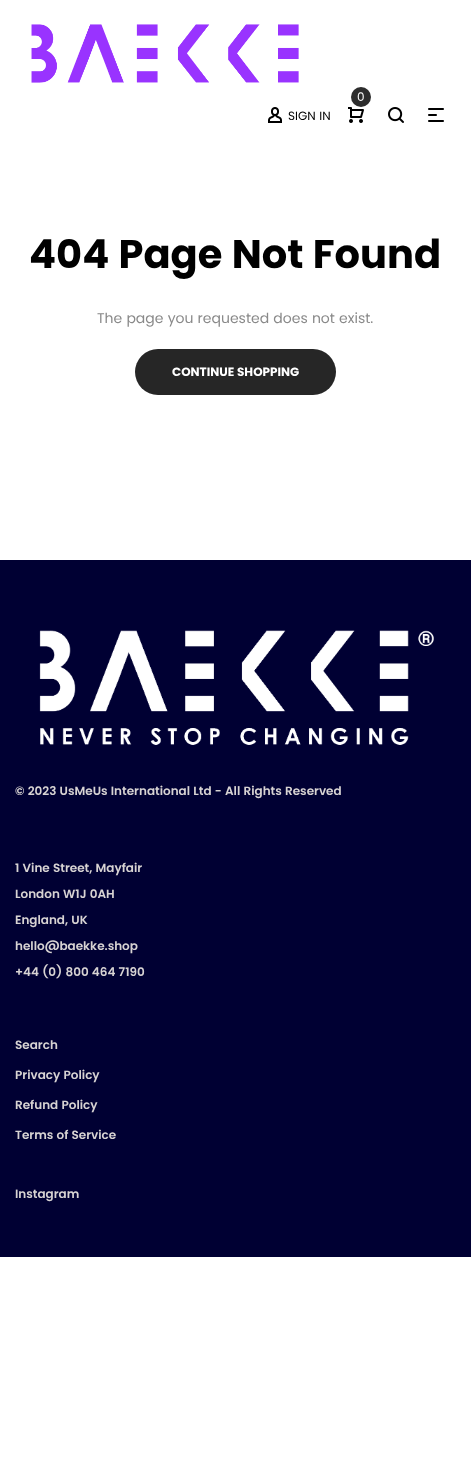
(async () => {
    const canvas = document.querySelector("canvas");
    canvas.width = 471;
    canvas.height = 1464;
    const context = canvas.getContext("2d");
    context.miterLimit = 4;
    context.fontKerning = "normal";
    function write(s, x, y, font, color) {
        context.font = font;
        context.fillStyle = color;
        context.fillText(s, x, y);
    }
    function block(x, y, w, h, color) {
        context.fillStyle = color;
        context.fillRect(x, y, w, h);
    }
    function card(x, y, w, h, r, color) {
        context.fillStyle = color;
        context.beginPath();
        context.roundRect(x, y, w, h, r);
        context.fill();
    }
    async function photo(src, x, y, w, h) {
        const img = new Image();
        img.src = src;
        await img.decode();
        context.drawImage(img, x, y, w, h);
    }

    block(0, 0, 471, 1464, "rgb(255, 255, 255)");
    await photo("media/1.png", 31, 24, 268, 59);
    context.fillStyle = "rgb(45, 45, 45)";
    context.beginPath();
    context.arc(361, 97, 10, 0, Math.PI * 2);
    context.fill();
    write("0", 357, 101, "12px Poppins", "rgb(255, 255, 255)");
    await photo("media/2.png", 348, 107, 16, 16);
    await photo("media/3.png", 268, 107, 14, 16);
    write("SIGN IN", 288, 120, "12px Poppins", "rgb(0, 0, 0)");
    await photo("media/4.png", 388, 107, 16, 16);
    await photo("media/5.png", 428, 108, 16, 14);
    write("404 Page Not Found", 29, 268, "bold 40px Poppins", "rgb(0, 0, 0)");
    write("The page you requested does not exist.", 97, 323, "14px Poppins", "rgb(137, 137, 137)");
    card(135, 349, 201, 46, 23, "rgb(38, 38, 38)");
    write("CONTINUE SHOPPING", 172, 376, "bold 12px Poppins", "rgb(255, 255, 255)");
    block(0, 560, 471, 697, "rgb(0, 0, 51)");
    await photo("media/6.png", 39, 630, 395, 115);
    write("© 2023 UsMeUs International Ltd - All Rights Reserved", 15, 795, "600 12px Poppins", "rgb(215, 211, 211)");
    write("1 Vine Street, Mayfair", 15, 872, "600 12px Poppins", "rgb(215, 211, 211)");
    write("London W1J 0AH", 15, 898, "600 12px Poppins", "rgb(215, 211, 211)");
    write("England, UK", 15, 924, "600 12px Poppins", "rgb(215, 211, 211)");
    write("hello@baekke.shop", 15, 950, "600 12px Poppins", "rgb(215, 211, 211)");
    write("+44 (0) 800 464 7190", 15, 976, "600 12px Poppins", "rgb(215, 211, 211)");
    write("Search", 15, 1049, "600 12px Poppins", "rgb(215, 211, 211)");
    write("Privacy Policy", 15, 1079, "600 12px Poppins", "rgb(215, 211, 211)");
    write("Refund Policy", 15, 1109, "600 12px Poppins", "rgb(215, 211, 211)");
    write("Terms of Service", 15, 1139, "600 12px Poppins", "rgb(215, 211, 211)");
    write("Instagram", 15, 1198, "600 12px Poppins", "rgb(215, 211, 211)");
})();
